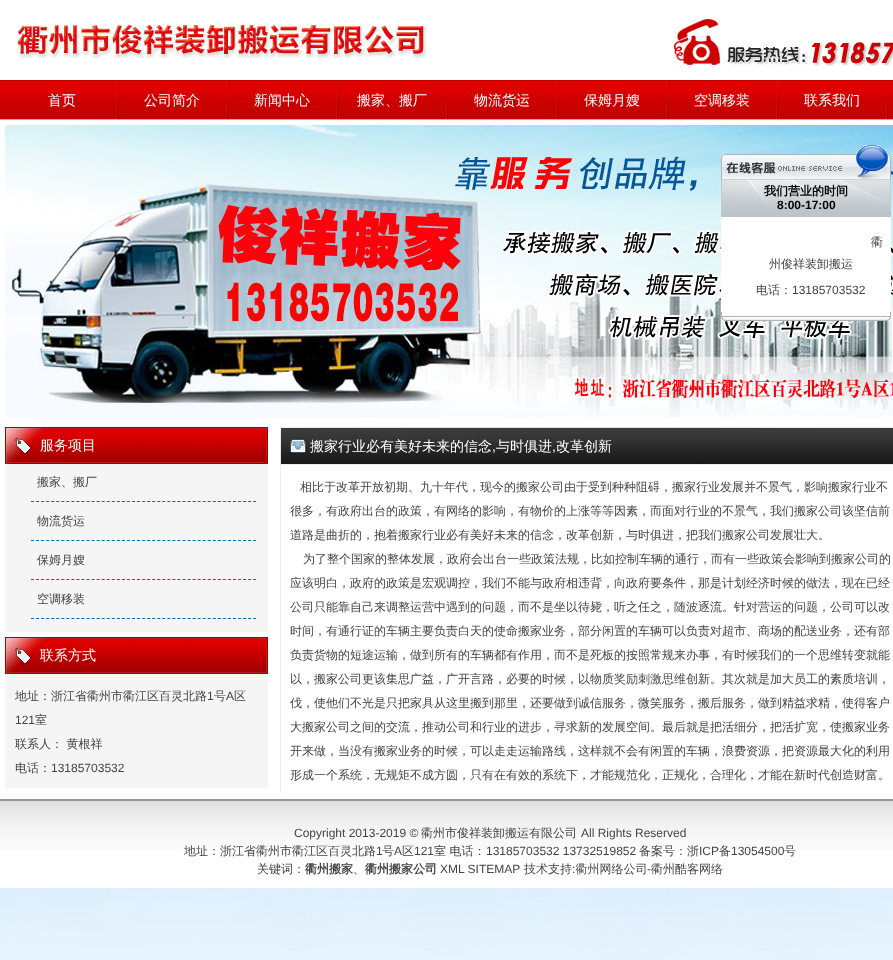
(async () => {
    const canvas = document.querySelector("canvas");
    canvas.width = 893;
    canvas.height = 960;
    const context = canvas.getContext("2d");
    context.miterLimit = 4;
    context.fontKerning = "normal";
    function write(s, x, y, font, color) {
        context.font = font;
        context.fillStyle = color;
        context.fillText(s, x, y);
    }
    function block(x, y, w, h, color) {
        context.fillStyle = color;
        context.fillRect(x, y, w, h);
    }
    async function photo(src, x, y, w, h) {
        const img = new Image();
        img.src = src;
        await img.decode();
        context.drawImage(img, x, y, w, h);
    }

    block(0, 0, 893, 960, "rgb(255, 255, 255)");
    await photo("media/1.png", 0, 888, 893, 72);
    await photo("media/2.png", 16, 19, 411, 40);
    await photo("media/3.png", 672, 18, 221, 48);
    await photo("media/4.png", 0, 80, 893, 40);
    await photo("media/5.png", 116, 80, 2, 40);
    write("首页", 48, 105, "500 14px WenQuanYi Zen Hei", "rgb(255, 255, 255)");
    await photo("media/5.png", 226, 80, 2, 40);
    write("公司简介", 144, 105, "500 14px WenQuanYi Zen Hei", "rgb(255, 255, 255)");
    await photo("media/5.png", 336, 80, 2, 40);
    write("新闻中心", 254, 105, "500 14px WenQuanYi Zen Hei", "rgb(255, 255, 255)");
    await photo("media/5.png", 446, 80, 2, 40);
    write("搬家、搬厂", 357, 105, "500 14px WenQuanYi Zen Hei", "rgb(255, 255, 255)");
    await photo("media/5.png", 556, 80, 2, 40);
    write("物流货运", 474, 105, "500 14px WenQuanYi Zen Hei", "rgb(255, 255, 255)");
    await photo("media/5.png", 666, 80, 2, 40);
    write("保姆月嫂", 584, 105, "500 14px WenQuanYi Zen Hei", "rgb(255, 255, 255)");
    await photo("media/5.png", 776, 80, 2, 40);
    write("空调移装", 694, 105, "500 14px WenQuanYi Zen Hei", "rgb(255, 255, 255)");
    await photo("media/5.png", 886, 80, 2, 40);
    write("联系我们", 804, 105, "500 14px WenQuanYi Zen Hei", "rgb(255, 255, 255)");
    await photo("media/6.png", 5, 125, 888, 292);
    block(5, 464, 263, 168, "rgb(245, 245, 245)");
    await photo("media/7.png", 5, 427, 263, 37);
    write("服务项目", 40, 450, "500 14px WenQuanYi Zen Hei", "rgb(255, 255, 255)");
    context.beginPath();
    context.moveTo(31, 501.5);
    context.lineTo(256, 501.5);
    context.strokeStyle = "rgb(2, 111, 176)";
    context.setLineDash([3, 2.05]);
    context.stroke();
    write("搬家、搬厂", 37, 486, "500 12px WenQuanYi Zen Hei", "rgb(68, 68, 68)");
    context.beginPath();
    context.moveTo(31, 540.5);
    context.lineTo(256, 540.5);
    context.stroke();
    write("物流货运", 37, 525, "500 12px WenQuanYi Zen Hei", "rgb(68, 68, 68)");
    context.beginPath();
    context.moveTo(31, 579.5);
    context.lineTo(256, 579.5);
    context.stroke();
    write("保姆月嫂", 37, 564, "500 12px WenQuanYi Zen Hei", "rgb(68, 68, 68)");
    context.beginPath();
    context.moveTo(31, 618.5);
    context.lineTo(256, 618.5);
    context.stroke();
    write("空调移装", 37, 603, "500 12px WenQuanYi Zen Hei", "rgb(68, 68, 68)");
    block(5, 674, 263, 114, "rgb(245, 245, 245)");
    await photo("media/7.png", 5, 637, 263, 37);
    write("联系方式", 40, 660, "500 14px WenQuanYi Zen Hei", "rgb(255, 255, 255)");
    write("地址：浙江省衢州市衢江区百灵北路", 15, 700, "500 12px WenQuanYi Zen Hei", "rgb(68, 68, 68)");
    write("1", 207, 700, "12px Liberation Sans", "rgb(68, 68, 68)");
    write("号", 214, 700, "500 12px WenQuanYi Zen Hei", "rgb(68, 68, 68)");
    write("A", 226, 700, "12px Liberation Sans", "rgb(68, 68, 68)");
    write("区", 234, 700, "500 12px WenQuanYi Zen Hei", "rgb(68, 68, 68)");
    write("121", 15, 724, "12px Liberation Sans", "rgb(68, 68, 68)");
    write("室", 35, 724, "500 12px WenQuanYi Zen Hei", "rgb(68, 68, 68)");
    write("联系人： 黄根祥", 15, 748, "500 12px WenQuanYi Zen Hei", "rgb(68, 68, 68)");
    write("电话：", 15, 772, "500 12px WenQuanYi Zen Hei", "rgb(68, 68, 68)");
    write("13185703532", 51, 772, "12px Liberation Sans", "rgb(68, 68, 68)");
    block(280, 465, 1, 334, "rgb(237, 235, 235)");
    await photo("media/8.png", 280, 427, 613, 38);
    write("搬家行业必有美好未来的信念", 310, 451, "500 14px WenQuanYi Zen Hei", "rgb(255, 255, 255)");
    write(",", 492, 451, "14px Liberation Sans", "rgb(255, 255, 255)");
    write("与时俱进", 496, 451, "500 14px WenQuanYi Zen Hei", "rgb(255, 255, 255)");
    write(",", 552, 451, "14px Liberation Sans", "rgb(255, 255, 255)");
    write("改革创新", 556, 451, "500 14px WenQuanYi Zen Hei", "rgb(255, 255, 255)");
    write("相比于改革开放初期、九十年代，现今的搬家公司由于受到种种阻碍，搬家行业发展并不景气，影响搬家行业不", 300, 491, "500 12px WenQuanYi Zen Hei", "rgb(68, 68, 68)");
    write("很多，有政府出台的政策，有网络的影响，有物价的上涨等等因素，而面对行业的不景气，我们搬家公司该坚信前", 290, 515, "500 12px WenQuanYi Zen Hei", "rgb(68, 68, 68)");
    write("道路是曲折的，抱着搬家行业必有美好未来的信念，改革创新，与时俱进，把我们搬家公司发展壮大。", 290, 539, "500 12px WenQuanYi Zen Hei", "rgb(68, 68, 68)");
    write("为了整个国家的整体发展，政府会出台一些政策法规，比如控制车辆的通行，而有一些政策会影响到搬家公司的", 303, 563, "500 12px WenQuanYi Zen Hei", "rgb(68, 68, 68)");
    write("应该明白，政府的政策是宏观调控，我们不能与政府相违背，向政府要条件，那是计划经济时候的做法，现在已经", 290, 587, "500 12px WenQuanYi Zen Hei", "rgb(68, 68, 68)");
    write("公司只能靠自己来调整运营中遇到的问题，而不是坐以待毙，听之任之，随波逐流。针对营运的问题，公司可以改", 290, 611, "500 12px WenQuanYi Zen Hei", "rgb(68, 68, 68)");
    write("时间，有通行证的车辆主要负责白天的使命搬家业务，部分闲置的车辆可以负责对超市、商场的配送业务，还有部", 290, 635, "500 12px WenQuanYi Zen Hei", "rgb(68, 68, 68)");
    write("负责货物的短途运输，做到所有的车辆都有作用，而不是死板的按照常规来办事，有时候我们的一个思维转变就能", 290, 659, "500 12px WenQuanYi Zen Hei", "rgb(68, 68, 68)");
    write("以，搬家公司更该集思广益，广开言路，必要的时候，以物质奖励刺激思维创新。其次就是加大员工的素质培训，", 290, 683, "500 12px WenQuanYi Zen Hei", "rgb(68, 68, 68)");
    write("伐，使他们不光是只把家具从这里搬到那里，还要做到诚信服务，微笑服务，搬后服务，做到精益求精，使得客户", 290, 707, "500 12px WenQuanYi Zen Hei", "rgb(68, 68, 68)");
    write("大搬家公司之间的交流，推动公司和行业的进步，寻求新的发展空间。最后就是把活细分，把活扩宽，使搬家业务", 290, 731, "500 12px WenQuanYi Zen Hei", "rgb(68, 68, 68)");
    write("开来做，当没有搬家业务的时候，可以走走运输路线，这样就不会有闲置的车辆，浪费资源，把资源最大化的利用", 290, 755, "500 12px WenQuanYi Zen Hei", "rgb(68, 68, 68)");
    write("形成一个系统，无规矩不成方圆，只有在有效的系统下，才能规范化，正规化，合理化，才能在新时代创造财富。", 290, 779, "500 12px WenQuanYi Zen Hei", "rgb(68, 68, 68)");
    block(280, 793, 1, 6, "rgb(255, 255, 255)");
    await photo("media/9.png", 721, 145, 170, 34);
    block(721, 213, 170, 4, "rgb(189, 197, 203)");
    await photo("media/10.png", 721, 179, 170, 34);
    write("我们营业的时间", 764, 195, "bold 12px WenQuanYi Zen Hei", "rgb(0, 0, 0)");
    write("8:00-17:00", 777, 209, "bold 12px Liberation Sans", "rgb(0, 0, 0)");
    block(721, 217, 170, 95, "rgb(255, 255, 255)");
    write("衢", 871, 246, "500 12px WenQuanYi Zen Hei", "rgb(68, 68, 68)");
    write("州俊祥装卸搬运", 769, 268, "500 12px WenQuanYi Zen Hei", "rgb(68, 68, 68)");
    write("电话：", 756, 294, "500 12px WenQuanYi Zen Hei", "rgb(68, 68, 68)");
    write("13185703532", 792, 294, "12px Liberation Sans", "rgb(68, 68, 68)");
    await photo("media/11.png", 721, 312, 170, 9);
    await photo("media/12.png", 0, 799, 893, 50);
    write("Copyright 2013-2019 ©", 294, 837, "12px Liberation Sans", "rgb(68, 68, 68)");
    write("衢州市俊祥装卸搬运有限公司", 421, 837, "500 12px WenQuanYi Zen Hei", "rgb(68, 68, 68)");
    write("All Rights Reserved", 581, 837, "12px Liberation Sans", "rgb(68, 68, 68)");
    write("地址：浙江省衢州市衢江区百灵北路", 184, 855, "500 12px WenQuanYi Zen Hei", "rgb(68, 68, 68)");
    write("1", 376, 855, "12px Liberation Sans", "rgb(68, 68, 68)");
    write("号", 382, 855, "500 12px WenQuanYi Zen Hei", "rgb(68, 68, 68)");
    write("A", 394, 855, "12px Liberation Sans", "rgb(68, 68, 68)");
    write("区", 402, 855, "500 12px WenQuanYi Zen Hei", "rgb(68, 68, 68)");
    write("121", 414, 855, "12px Liberation Sans", "rgb(68, 68, 68)");
    write("室 电话：", 434, 855, "500 12px WenQuanYi Zen Hei", "rgb(68, 68, 68)");
    write("13185703532 13732519852", 486, 855, "12px Liberation Sans", "rgb(68, 68, 68)");
    write("备案号：浙", 639, 855, "500 12px WenQuanYi Zen Hei", "rgb(68, 68, 68)");
    write("ICP", 699, 855, "12px Liberation Sans", "rgb(68, 68, 68)");
    write("备", 719, 855, "500 12px WenQuanYi Zen Hei", "rgb(68, 68, 68)");
    write("13054500", 731, 855, "12px Liberation Sans", "rgb(68, 68, 68)");
    write("号", 784, 855, "500 12px WenQuanYi Zen Hei", "rgb(68, 68, 68)");
    write("关键词：", 257, 873, "500 12px WenQuanYi Zen Hei", "rgb(68, 68, 68)");
    write("衢州搬家", 305, 873, "bold 12px WenQuanYi Zen Hei", "rgb(68, 68, 68)");
    write("衢州搬家公司", 365, 873, "bold 12px WenQuanYi Zen Hei", "rgb(68, 68, 68)");
    write("XML SITEMAP", 440, 873, "12px Liberation Sans", "rgb(68, 68, 68)");
    write("技术支持 衢州网络公司", 524, 873, "500 12px WenQuanYi Zen Hei", "rgb(68, 68, 68)");
    write("衢州酷客网络", 651, 873, "500 12px WenQuanYi Zen Hei", "rgb(68, 68, 68)");
    write(":", 572, 873, "12px Liberation Sans", "rgb(68, 68, 68)");
    write("-", 647, 873, "12px Liberation Sans", "rgb(68, 68, 68)");
    write("、", 353, 873, "500 12px WenQuanYi Zen Hei", "rgb(68, 68, 68)");
})();
